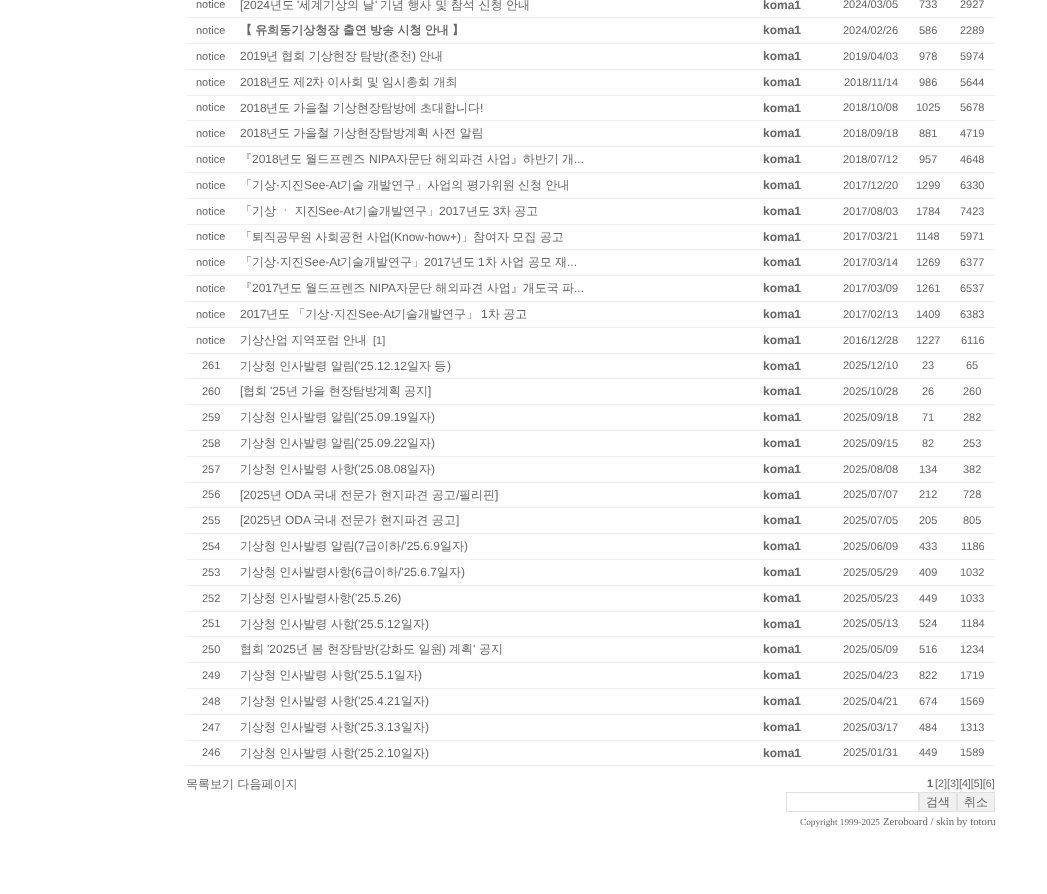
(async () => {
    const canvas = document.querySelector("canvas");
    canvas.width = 1047;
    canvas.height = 894;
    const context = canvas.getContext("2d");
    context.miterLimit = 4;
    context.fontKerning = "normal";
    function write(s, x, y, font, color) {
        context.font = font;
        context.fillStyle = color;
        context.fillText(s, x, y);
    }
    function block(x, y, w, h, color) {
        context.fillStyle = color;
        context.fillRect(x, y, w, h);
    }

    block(0, 0, 1047, 894, "rgb(255, 255, 255)");
    write("notice", 196, 8, "11px Liberation Sans", "rgb(102, 102, 102)");
    write("[2024", 240, 9, "12px Liberation Sans", "rgb(102, 102, 102)");
    write("년도", 270, 9, "500 12px WenQuanYi Zen Hei", "rgb(102, 102, 102)");
    write("'", 297, 9, "12px Liberation Sans", "rgb(102, 102, 102)");
    write("세계기상의 날", 299, 9, "500 12px WenQuanYi Zen Hei", "rgb(102, 102, 102)");
    write("'", 375, 9, "12px Liberation Sans", "rgb(102, 102, 102)");
    write("기념 행사 및 참석 신청 안내", 380, 9, "500 12px WenQuanYi Zen Hei", "rgb(102, 102, 102)");
    write("koma1", 763, 9, "bold 12px Liberation Sans", "rgb(102, 102, 102)");
    write("2024/03/05", 843, 8, "11px Liberation Sans", "rgb(102, 102, 102)");
    write("733", 919, 8, "11px Liberation Sans", "rgb(102, 102, 102)");
    write("2927", 960, 8, "11px Liberation Sans", "rgb(102, 102, 102)");
    block(186, 17, 809, 1, "rgb(240, 240, 240)");
    write("notice", 196, 34, "11px Liberation Sans", "rgb(102, 102, 102)");
    context.wordSpacing = "-0.25px";
    write("【 유희동기상청장 출연 방송 시청 안내 】", 240, 34, "bold 12px WenQuanYi Zen Hei", "rgb(102, 102, 102)");
    context.wordSpacing = "0px";
    write("koma1", 763, 34, "bold 12px Liberation Sans", "rgb(102, 102, 102)");
    write("2024/02/26", 843, 34, "11px Liberation Sans", "rgb(102, 102, 102)");
    write("586", 919, 34, "11px Liberation Sans", "rgb(102, 102, 102)");
    write("2289", 960, 34, "11px Liberation Sans", "rgb(102, 102, 102)");
    block(186, 43, 809, 1, "rgb(240, 240, 240)");
    write("notice", 196, 60, "11px Liberation Sans", "rgb(102, 102, 102)");
    write("2019", 240, 60, "12px Liberation Sans", "rgb(102, 102, 102)");
    context.wordSpacing = "-0.25px";
    write("년 협회 기상현장 탐방", 266, 60, "500 12px WenQuanYi Zen Hei", "rgb(102, 102, 102)");
    context.wordSpacing = "0px";
    write("(", 384, 60, "12px Liberation Sans", "rgb(102, 102, 102)");
    write("춘천", 388, 60, "500 12px WenQuanYi Zen Hei", "rgb(102, 102, 102)");
    write(")", 412, 60, "12px Liberation Sans", "rgb(102, 102, 102)");
    write("안내", 419, 60, "500 12px WenQuanYi Zen Hei", "rgb(102, 102, 102)");
    write("koma1", 763, 60, "bold 12px Liberation Sans", "rgb(102, 102, 102)");
    write("2019/04/03", 843, 60, "11px Liberation Sans", "rgb(102, 102, 102)");
    write("978", 919, 60, "11px Liberation Sans", "rgb(102, 102, 102)");
    write("5974", 960, 60, "11px Liberation Sans", "rgb(102, 102, 102)");
    block(186, 69, 809, 1, "rgb(240, 240, 240)");
    write("notice", 196, 86, "11px Liberation Sans", "rgb(102, 102, 102)");
    write("2018", 240, 86, "12px Liberation Sans", "rgb(102, 102, 102)");
    context.wordSpacing = "-0.25px";
    write("년도 제", 266, 86, "500 12px WenQuanYi Zen Hei", "rgb(102, 102, 102)");
    context.wordSpacing = "0px";
    write("2", 306, 86, "12px Liberation Sans", "rgb(102, 102, 102)");
    context.wordSpacing = "-0.25px";
    write("차 이사회 및 임시총회 개최", 312, 86, "500 12px WenQuanYi Zen Hei", "rgb(102, 102, 102)");
    context.wordSpacing = "0px";
    write("koma1", 763, 86, "bold 12px Liberation Sans", "rgb(102, 102, 102)");
    write("2018/11/14", 844, 86, "11px Liberation Sans", "rgb(102, 102, 102)");
    write("986", 919, 86, "11px Liberation Sans", "rgb(102, 102, 102)");
    write("5644", 960, 86, "11px Liberation Sans", "rgb(102, 102, 102)");
    block(186, 95, 809, 1, "rgb(240, 240, 240)");
    write("notice", 196, 111, "11px Liberation Sans", "rgb(102, 102, 102)");
    write("2018", 240, 112, "12px Liberation Sans", "rgb(102, 102, 102)");
    context.wordSpacing = "-0.25px";
    write("년도 가을철 기상현장탐방에 초대합니다", 266, 112, "500 12px WenQuanYi Zen Hei", "rgb(102, 102, 102)");
    context.wordSpacing = "0px";
    write("!", 480, 112, "12px Liberation Sans", "rgb(102, 102, 102)");
    write("koma1", 763, 112, "bold 12px Liberation Sans", "rgb(102, 102, 102)");
    write("2018/10/08", 843, 111, "11px Liberation Sans", "rgb(102, 102, 102)");
    write("1025", 916, 111, "11px Liberation Sans", "rgb(102, 102, 102)");
    write("5678", 960, 111, "11px Liberation Sans", "rgb(102, 102, 102)");
    block(186, 120, 809, 1, "rgb(240, 240, 240)");
    write("notice", 196, 137, "11px Liberation Sans", "rgb(102, 102, 102)");
    write("2018", 240, 137, "12px Liberation Sans", "rgb(102, 102, 102)");
    context.wordSpacing = "-0.25px";
    write("년도 가을철 기상현장탐방계획 사전 알림", 266, 137, "500 12px WenQuanYi Zen Hei", "rgb(102, 102, 102)");
    context.wordSpacing = "0px";
    write("koma1", 763, 137, "bold 12px Liberation Sans", "rgb(102, 102, 102)");
    write("2018/09/18", 843, 137, "11px Liberation Sans", "rgb(102, 102, 102)");
    write("881", 919, 137, "11px Liberation Sans", "rgb(102, 102, 102)");
    write("4719", 960, 137, "11px Liberation Sans", "rgb(102, 102, 102)");
    block(186, 146, 809, 1, "rgb(240, 240, 240)");
    write("notice", 196, 163, "11px Liberation Sans", "rgb(102, 102, 102)");
    write("『", 240, 163, "500 12px WenQuanYi Zen Hei", "rgb(102, 102, 102)");
    write("2018", 252, 163, "12px Liberation Sans", "rgb(102, 102, 102)");
    context.wordSpacing = "-0.25px";
    write("년도 월드프렌즈", 278, 163, "500 12px WenQuanYi Zen Hei", "rgb(102, 102, 102)");
    context.wordSpacing = "0px";
    write("NIPA", 369, 163, "12px Liberation Sans", "rgb(102, 102, 102)");
    context.wordSpacing = "-0.25px";
    write("자문단 해외파견 사업』하반기 개", 396, 163, "500 12px WenQuanYi Zen Hei", "rgb(102, 102, 102)");
    context.wordSpacing = "0px";
    write("...", 574, 163, "12px Liberation Sans", "rgb(102, 102, 102)");
    write("koma1", 763, 163, "bold 12px Liberation Sans", "rgb(102, 102, 102)");
    write("2018/07/12", 843, 163, "11px Liberation Sans", "rgb(102, 102, 102)");
    write("957", 919, 163, "11px Liberation Sans", "rgb(102, 102, 102)");
    write("4648", 960, 163, "11px Liberation Sans", "rgb(102, 102, 102)");
    block(186, 172, 809, 1, "rgb(240, 240, 240)");
    write("notice", 196, 189, "11px Liberation Sans", "rgb(102, 102, 102)");
    write("「기상", 240, 189, "500 12px WenQuanYi Zen Hei", "rgb(102, 102, 102)");
    write("·", 276, 189, "12px Liberation Sans", "rgb(102, 102, 102)");
    write("지진", 280, 189, "500 12px WenQuanYi Zen Hei", "rgb(102, 102, 102)");
    write("See-At", 304, 189, "12px Liberation Sans", "rgb(102, 102, 102)");
    context.wordSpacing = "-0.25px";
    write("기술 개발연구」사업의 평가위원 신청 안내", 340, 189, "500 12px WenQuanYi Zen Hei", "rgb(102, 102, 102)");
    context.wordSpacing = "0px";
    write("koma1", 763, 189, "bold 12px Liberation Sans", "rgb(102, 102, 102)");
    write("2017/12/20", 843, 189, "11px Liberation Sans", "rgb(102, 102, 102)");
    write("1299", 916, 189, "11px Liberation Sans", "rgb(102, 102, 102)");
    write("6330", 960, 189, "11px Liberation Sans", "rgb(102, 102, 102)");
    block(186, 198, 809, 1, "rgb(240, 240, 240)");
    write("notice", 196, 215, "11px Liberation Sans", "rgb(102, 102, 102)");
    context.wordSpacing = "-0.25px";
    write("「기상 ㆍ 지진", 240, 215, "500 12px WenQuanYi Zen Hei", "rgb(102, 102, 102)");
    context.wordSpacing = "0px";
    write("See-At", 318, 215, "12px Liberation Sans", "rgb(102, 102, 102)");
    write("기술개발연구」", 355, 215, "500 12px WenQuanYi Zen Hei", "rgb(102, 102, 102)");
    write("2017", 439, 215, "12px Liberation Sans", "rgb(102, 102, 102)");
    write("년도", 466, 215, "500 12px WenQuanYi Zen Hei", "rgb(102, 102, 102)");
    write("3", 493, 215, "12px Liberation Sans", "rgb(102, 102, 102)");
    context.wordSpacing = "-0.25px";
    write("차 공고", 499, 215, "500 12px WenQuanYi Zen Hei", "rgb(102, 102, 102)");
    context.wordSpacing = "0px";
    write("koma1", 763, 215, "bold 12px Liberation Sans", "rgb(102, 102, 102)");
    write("2017/08/03", 843, 215, "11px Liberation Sans", "rgb(102, 102, 102)");
    write("1784", 916, 215, "11px Liberation Sans", "rgb(102, 102, 102)");
    write("7423", 960, 215, "11px Liberation Sans", "rgb(102, 102, 102)");
    block(186, 224, 809, 1, "rgb(240, 240, 240)");
    write("notice", 196, 240, "11px Liberation Sans", "rgb(102, 102, 102)");
    context.wordSpacing = "-0.25px";
    write("「퇴직공무원 사회공헌 사업", 240, 241, "500 12px WenQuanYi Zen Hei", "rgb(102, 102, 102)");
    context.wordSpacing = "0px";
    write("(Know-how+)", 390, 241, "12px Liberation Sans", "rgb(102, 102, 102)");
    context.wordSpacing = "-0.25px";
    write("」참여자 모집 공고", 461, 241, "500 12px WenQuanYi Zen Hei", "rgb(102, 102, 102)");
    context.wordSpacing = "0px";
    write("koma1", 763, 241, "bold 12px Liberation Sans", "rgb(102, 102, 102)");
    write("2017/03/21", 843, 240, "11px Liberation Sans", "rgb(102, 102, 102)");
    write("1148", 916, 240, "11px Liberation Sans", "rgb(102, 102, 102)");
    write("5971", 960, 240, "11px Liberation Sans", "rgb(102, 102, 102)");
    block(186, 249, 809, 1, "rgb(240, 240, 240)");
    write("notice", 196, 266, "11px Liberation Sans", "rgb(102, 102, 102)");
    write("「기상", 240, 266, "500 12px WenQuanYi Zen Hei", "rgb(102, 102, 102)");
    write("·", 276, 266, "12px Liberation Sans", "rgb(102, 102, 102)");
    write("지진", 280, 266, "500 12px WenQuanYi Zen Hei", "rgb(102, 102, 102)");
    write("See-At", 304, 266, "12px Liberation Sans", "rgb(102, 102, 102)");
    write("기술개발연구」", 340, 266, "500 12px WenQuanYi Zen Hei", "rgb(102, 102, 102)");
    write("2017", 424, 266, "12px Liberation Sans", "rgb(102, 102, 102)");
    write("년도", 451, 266, "500 12px WenQuanYi Zen Hei", "rgb(102, 102, 102)");
    write("1", 478, 266, "12px Liberation Sans", "rgb(102, 102, 102)");
    context.wordSpacing = "-0.25px";
    write("차 사업 공모 재", 485, 266, "500 12px WenQuanYi Zen Hei", "rgb(102, 102, 102)");
    context.wordSpacing = "0px";
    write("...", 567, 266, "12px Liberation Sans", "rgb(102, 102, 102)");
    write("koma1", 763, 266, "bold 12px Liberation Sans", "rgb(102, 102, 102)");
    write("2017/03/14", 843, 266, "11px Liberation Sans", "rgb(102, 102, 102)");
    write("1269", 916, 266, "11px Liberation Sans", "rgb(102, 102, 102)");
    write("6377", 960, 266, "11px Liberation Sans", "rgb(102, 102, 102)");
    block(186, 275, 809, 1, "rgb(240, 240, 240)");
    write("notice", 196, 292, "11px Liberation Sans", "rgb(102, 102, 102)");
    write("『", 240, 292, "500 12px WenQuanYi Zen Hei", "rgb(102, 102, 102)");
    write("2017", 252, 292, "12px Liberation Sans", "rgb(102, 102, 102)");
    context.wordSpacing = "-0.25px";
    write("년도 월드프렌즈", 278, 292, "500 12px WenQuanYi Zen Hei", "rgb(102, 102, 102)");
    context.wordSpacing = "0px";
    write("NIPA", 369, 292, "12px Liberation Sans", "rgb(102, 102, 102)");
    context.wordSpacing = "-0.25px";
    write("자문단 해외파견 사업』개도국 파", 396, 292, "500 12px WenQuanYi Zen Hei", "rgb(102, 102, 102)");
    context.wordSpacing = "0px";
    write("...", 574, 292, "12px Liberation Sans", "rgb(102, 102, 102)");
    write("koma1", 763, 292, "bold 12px Liberation Sans", "rgb(102, 102, 102)");
    write("2017/03/09", 843, 292, "11px Liberation Sans", "rgb(102, 102, 102)");
    write("1261", 916, 292, "11px Liberation Sans", "rgb(102, 102, 102)");
    write("6537", 960, 292, "11px Liberation Sans", "rgb(102, 102, 102)");
    block(186, 301, 809, 1, "rgb(240, 240, 240)");
    write("notice", 196, 318, "11px Liberation Sans", "rgb(102, 102, 102)");
    write("2017", 240, 318, "12px Liberation Sans", "rgb(102, 102, 102)");
    context.wordSpacing = "-0.25px";
    write("년도 「기상", 266, 318, "500 12px WenQuanYi Zen Hei", "rgb(102, 102, 102)");
    context.wordSpacing = "0px";
    write("·", 330, 318, "12px Liberation Sans", "rgb(102, 102, 102)");
    write("지진", 334, 318, "500 12px WenQuanYi Zen Hei", "rgb(102, 102, 102)");
    write("See-At", 358, 318, "12px Liberation Sans", "rgb(102, 102, 102)");
    write("기술개발연구」", 394, 318, "500 12px WenQuanYi Zen Hei", "rgb(102, 102, 102)");
    write("1", 481, 318, "12px Liberation Sans", "rgb(102, 102, 102)");
    context.wordSpacing = "-0.25px";
    write("차 공고", 488, 318, "500 12px WenQuanYi Zen Hei", "rgb(102, 102, 102)");
    context.wordSpacing = "0px";
    write("koma1", 763, 318, "bold 12px Liberation Sans", "rgb(102, 102, 102)");
    write("2017/02/13", 843, 318, "11px Liberation Sans", "rgb(102, 102, 102)");
    write("1409", 916, 318, "11px Liberation Sans", "rgb(102, 102, 102)");
    write("6383", 960, 318, "11px Liberation Sans", "rgb(102, 102, 102)");
    block(186, 327, 809, 1, "rgb(240, 240, 240)");
    write("notice", 196, 344, "11px Liberation Sans", "rgb(102, 102, 102)");
    context.wordSpacing = "-0.25px";
    write("기상산업 지역포럼 안내", 240, 344, "500 12px WenQuanYi Zen Hei", "rgb(102, 102, 102)");
    context.wordSpacing = "0px";
    write("[1]", 373, 344, "11px Liberation Sans", "rgb(102, 102, 102)");
    write("koma1", 763, 344, "bold 12px Liberation Sans", "rgb(102, 102, 102)");
    write("2016/12/28", 843, 344, "11px Liberation Sans", "rgb(102, 102, 102)");
    write("1227", 916, 344, "11px Liberation Sans", "rgb(102, 102, 102)");
    write("6116", 961, 344, "11px Liberation Sans", "rgb(102, 102, 102)");
    block(186, 353, 809, 1, "rgb(240, 240, 240)");
    write("261", 202, 369, "11px Liberation Sans", "rgb(102, 102, 102)");
    context.wordSpacing = "-0.25px";
    write("기상청 인사발령 알림", 240, 370, "500 12px WenQuanYi Zen Hei", "rgb(102, 102, 102)");
    context.wordSpacing = "0px";
    write("('25.12.12", 354, 370, "12px Liberation Sans", "rgb(102, 102, 102)");
    context.wordSpacing = "-0.25px";
    write("일자 등", 407, 370, "500 12px WenQuanYi Zen Hei", "rgb(102, 102, 102)");
    context.wordSpacing = "0px";
    write(")", 447, 370, "12px Liberation Sans", "rgb(102, 102, 102)");
    write("koma1", 763, 370, "bold 12px Liberation Sans", "rgb(102, 102, 102)");
    write("2025/12/10", 843, 369, "11px Liberation Sans", "rgb(102, 102, 102)");
    write("23", 922, 369, "11px Liberation Sans", "rgb(102, 102, 102)");
    write("65", 966, 369, "11px Liberation Sans", "rgb(102, 102, 102)");
    block(186, 378, 809, 1, "rgb(240, 240, 240)");
    write("260", 202, 395, "11px Liberation Sans", "rgb(102, 102, 102)");
    write("[", 240, 395, "12px Liberation Sans", "rgb(102, 102, 102)");
    write("협회", 243, 395, "500 12px WenQuanYi Zen Hei", "rgb(102, 102, 102)");
    write("'25", 270, 395, "12px Liberation Sans", "rgb(102, 102, 102)");
    context.wordSpacing = "-0.25px";
    write("년 가을 현장탐방계획 공지", 286, 395, "500 12px WenQuanYi Zen Hei", "rgb(102, 102, 102)");
    context.wordSpacing = "0px";
    write("]", 428, 395, "12px Liberation Sans", "rgb(102, 102, 102)");
    write("koma1", 763, 395, "bold 12px Liberation Sans", "rgb(102, 102, 102)");
    write("2025/10/28", 843, 395, "11px Liberation Sans", "rgb(102, 102, 102)");
    write("26", 922, 395, "11px Liberation Sans", "rgb(102, 102, 102)");
    write("260", 963, 395, "11px Liberation Sans", "rgb(102, 102, 102)");
    block(186, 404, 809, 1, "rgb(240, 240, 240)");
    write("259", 202, 421, "11px Liberation Sans", "rgb(102, 102, 102)");
    context.wordSpacing = "-0.25px";
    write("기상청 인사발령 알림", 240, 421, "500 12px WenQuanYi Zen Hei", "rgb(102, 102, 102)");
    context.wordSpacing = "0px";
    write("('25.09.19", 354, 421, "12px Liberation Sans", "rgb(102, 102, 102)");
    write("일자", 407, 421, "500 12px WenQuanYi Zen Hei", "rgb(102, 102, 102)");
    write(")", 431, 421, "12px Liberation Sans", "rgb(102, 102, 102)");
    write("koma1", 763, 421, "bold 12px Liberation Sans", "rgb(102, 102, 102)");
    write("2025/09/18", 843, 421, "11px Liberation Sans", "rgb(102, 102, 102)");
    write("71", 922, 421, "11px Liberation Sans", "rgb(102, 102, 102)");
    write("282", 963, 421, "11px Liberation Sans", "rgb(102, 102, 102)");
    block(186, 430, 809, 1, "rgb(240, 240, 240)");
    write("258", 202, 447, "11px Liberation Sans", "rgb(102, 102, 102)");
    context.wordSpacing = "-0.25px";
    write("기상청 인사발령 알림", 240, 447, "500 12px WenQuanYi Zen Hei", "rgb(102, 102, 102)");
    context.wordSpacing = "0px";
    write("('25.09.22", 354, 447, "12px Liberation Sans", "rgb(102, 102, 102)");
    write("일자", 407, 447, "500 12px WenQuanYi Zen Hei", "rgb(102, 102, 102)");
    write(")", 431, 447, "12px Liberation Sans", "rgb(102, 102, 102)");
    write("koma1", 763, 447, "bold 12px Liberation Sans", "rgb(102, 102, 102)");
    write("2025/09/15", 843, 447, "11px Liberation Sans", "rgb(102, 102, 102)");
    write("82", 922, 447, "11px Liberation Sans", "rgb(102, 102, 102)");
    write("253", 963, 447, "11px Liberation Sans", "rgb(102, 102, 102)");
    block(186, 456, 809, 1, "rgb(240, 240, 240)");
    write("257", 202, 473, "11px Liberation Sans", "rgb(102, 102, 102)");
    context.wordSpacing = "-0.25px";
    write("기상청 인사발령 사항", 240, 473, "500 12px WenQuanYi Zen Hei", "rgb(102, 102, 102)");
    context.wordSpacing = "0px";
    write("('25.08.08", 354, 473, "12px Liberation Sans", "rgb(102, 102, 102)");
    write("일자", 407, 473, "500 12px WenQuanYi Zen Hei", "rgb(102, 102, 102)");
    write(")", 431, 473, "12px Liberation Sans", "rgb(102, 102, 102)");
    write("koma1", 763, 473, "bold 12px Liberation Sans", "rgb(102, 102, 102)");
    write("2025/08/08", 843, 473, "11px Liberation Sans", "rgb(102, 102, 102)");
    write("134", 919, 473, "11px Liberation Sans", "rgb(102, 102, 102)");
    write("382", 963, 473, "11px Liberation Sans", "rgb(102, 102, 102)");
    block(186, 482, 809, 1, "rgb(240, 240, 240)");
    write("256", 202, 498, "11px Liberation Sans", "rgb(102, 102, 102)");
    write("[2025", 240, 499, "12px Liberation Sans", "rgb(102, 102, 102)");
    write("년", 270, 499, "500 12px WenQuanYi Zen Hei", "rgb(102, 102, 102)");
    write("ODA", 285, 499, "12px Liberation Sans", "rgb(102, 102, 102)");
    write("국내 전문가 현지파견 공고", 313, 499, "500 12px WenQuanYi Zen Hei", "rgb(102, 102, 102)");
    write("/", 456, 499, "12px Liberation Sans", "rgb(102, 102, 102)");
    write("필리핀", 459, 499, "500 12px WenQuanYi Zen Hei", "rgb(102, 102, 102)");
    write("]", 495, 499, "12px Liberation Sans", "rgb(102, 102, 102)");
    write("koma1", 763, 499, "bold 12px Liberation Sans", "rgb(102, 102, 102)");
    write("2025/07/07", 843, 498, "11px Liberation Sans", "rgb(102, 102, 102)");
    write("212", 919, 498, "11px Liberation Sans", "rgb(102, 102, 102)");
    write("728", 963, 498, "11px Liberation Sans", "rgb(102, 102, 102)");
    block(186, 507, 809, 1, "rgb(240, 240, 240)");
    write("255", 202, 524, "11px Liberation Sans", "rgb(102, 102, 102)");
    write("[2025", 240, 524, "12px Liberation Sans", "rgb(102, 102, 102)");
    write("년", 270, 524, "500 12px WenQuanYi Zen Hei", "rgb(102, 102, 102)");
    write("ODA", 285, 524, "12px Liberation Sans", "rgb(102, 102, 102)");
    write("국내 전문가 현지파견 공고", 313, 524, "500 12px WenQuanYi Zen Hei", "rgb(102, 102, 102)");
    write("]", 456, 524, "12px Liberation Sans", "rgb(102, 102, 102)");
    write("koma1", 763, 524, "bold 12px Liberation Sans", "rgb(102, 102, 102)");
    write("2025/07/05", 843, 524, "11px Liberation Sans", "rgb(102, 102, 102)");
    write("205", 919, 524, "11px Liberation Sans", "rgb(102, 102, 102)");
    write("805", 963, 524, "11px Liberation Sans", "rgb(102, 102, 102)");
    block(186, 533, 809, 1, "rgb(240, 240, 240)");
    write("254", 202, 550, "11px Liberation Sans", "rgb(102, 102, 102)");
    context.wordSpacing = "-0.25px";
    write("기상청 인사발령 알림", 240, 550, "500 12px WenQuanYi Zen Hei", "rgb(102, 102, 102)");
    context.wordSpacing = "0px";
    write("(7", 354, 550, "12px Liberation Sans", "rgb(102, 102, 102)");
    write("급이하", 365, 550, "500 12px WenQuanYi Zen Hei", "rgb(102, 102, 102)");
    write("/'25.6.9", 401, 550, "12px Liberation Sans", "rgb(102, 102, 102)");
    write("일자", 440, 550, "500 12px WenQuanYi Zen Hei", "rgb(102, 102, 102)");
    write(")", 464, 550, "12px Liberation Sans", "rgb(102, 102, 102)");
    write("koma1", 763, 550, "bold 12px Liberation Sans", "rgb(102, 102, 102)");
    write("2025/06/09", 843, 550, "11px Liberation Sans", "rgb(102, 102, 102)");
    write("433", 919, 550, "11px Liberation Sans", "rgb(102, 102, 102)");
    write("1186", 961, 550, "11px Liberation Sans", "rgb(102, 102, 102)");
    block(186, 559, 809, 1, "rgb(240, 240, 240)");
    write("253", 202, 576, "11px Liberation Sans", "rgb(102, 102, 102)");
    context.wordSpacing = "-0.25px";
    write("기상청 인사발령사항", 240, 576, "500 12px WenQuanYi Zen Hei", "rgb(102, 102, 102)");
    context.wordSpacing = "0px";
    write("(6", 351, 576, "12px Liberation Sans", "rgb(102, 102, 102)");
    write("급이하", 362, 576, "500 12px WenQuanYi Zen Hei", "rgb(102, 102, 102)");
    write("/'25.6.7", 398, 576, "12px Liberation Sans", "rgb(102, 102, 102)");
    write("일자", 437, 576, "500 12px WenQuanYi Zen Hei", "rgb(102, 102, 102)");
    write(")", 461, 576, "12px Liberation Sans", "rgb(102, 102, 102)");
    write("koma1", 763, 576, "bold 12px Liberation Sans", "rgb(102, 102, 102)");
    write("2025/05/29", 843, 576, "11px Liberation Sans", "rgb(102, 102, 102)");
    write("409", 919, 576, "11px Liberation Sans", "rgb(102, 102, 102)");
    write("1032", 960, 576, "11px Liberation Sans", "rgb(102, 102, 102)");
    block(186, 585, 809, 1, "rgb(240, 240, 240)");
    write("252", 202, 602, "11px Liberation Sans", "rgb(102, 102, 102)");
    context.wordSpacing = "-0.25px";
    write("기상청 인사발령사항", 240, 602, "500 12px WenQuanYi Zen Hei", "rgb(102, 102, 102)");
    context.wordSpacing = "0px";
    write("('25.5.26)", 351, 602, "12px Liberation Sans", "rgb(102, 102, 102)");
    write("koma1", 763, 602, "bold 12px Liberation Sans", "rgb(102, 102, 102)");
    write("2025/05/23", 843, 602, "11px Liberation Sans", "rgb(102, 102, 102)");
    write("449", 919, 602, "11px Liberation Sans", "rgb(102, 102, 102)");
    write("1033", 960, 602, "11px Liberation Sans", "rgb(102, 102, 102)");
    block(186, 611, 809, 1, "rgb(240, 240, 240)");
    write("251", 202, 627, "11px Liberation Sans", "rgb(102, 102, 102)");
    context.wordSpacing = "-0.25px";
    write("기상청 인사발령 사항", 240, 628, "500 12px WenQuanYi Zen Hei", "rgb(102, 102, 102)");
    context.wordSpacing = "0px";
    write("('25.5.12", 354, 628, "12px Liberation Sans", "rgb(102, 102, 102)");
    write("일자", 401, 628, "500 12px WenQuanYi Zen Hei", "rgb(102, 102, 102)");
    write(")", 425, 628, "12px Liberation Sans", "rgb(102, 102, 102)");
    write("koma1", 763, 628, "bold 12px Liberation Sans", "rgb(102, 102, 102)");
    write("2025/05/13", 843, 627, "11px Liberation Sans", "rgb(102, 102, 102)");
    write("524", 919, 627, "11px Liberation Sans", "rgb(102, 102, 102)");
    write("1184", 961, 627, "11px Liberation Sans", "rgb(102, 102, 102)");
    block(186, 636, 809, 1, "rgb(240, 240, 240)");
    write("250", 202, 653, "11px Liberation Sans", "rgb(102, 102, 102)");
    write("협회", 240, 653, "500 12px WenQuanYi Zen Hei", "rgb(102, 102, 102)");
    write("'2025", 267, 653, "12px Liberation Sans", "rgb(102, 102, 102)");
    write("년 봄 현장탐방", 296, 653, "500 12px WenQuanYi Zen Hei", "rgb(102, 102, 102)");
    write("(", 375, 653, "12px Liberation Sans", "rgb(102, 102, 102)");
    write("강화도 일원", 379, 653, "500 12px WenQuanYi Zen Hei", "rgb(102, 102, 102)");
    write(")", 442, 653, "12px Liberation Sans", "rgb(102, 102, 102)");
    write("계획", 449, 653, "500 12px WenQuanYi Zen Hei", "rgb(102, 102, 102)");
    write("'", 473, 653, "12px Liberation Sans", "rgb(102, 102, 102)");
    write("공지", 479, 653, "500 12px WenQuanYi Zen Hei", "rgb(102, 102, 102)");
    write("koma1", 763, 653, "bold 12px Liberation Sans", "rgb(102, 102, 102)");
    write("2025/05/09", 843, 653, "11px Liberation Sans", "rgb(102, 102, 102)");
    write("516", 919, 653, "11px Liberation Sans", "rgb(102, 102, 102)");
    write("1234", 960, 653, "11px Liberation Sans", "rgb(102, 102, 102)");
    block(186, 662, 809, 1, "rgb(240, 240, 240)");
    write("249", 202, 679, "11px Liberation Sans", "rgb(102, 102, 102)");
    context.wordSpacing = "-0.25px";
    write("기상청 인사발령 사항", 240, 679, "500 12px WenQuanYi Zen Hei", "rgb(102, 102, 102)");
    context.wordSpacing = "0px";
    write("('25.5.1", 354, 679, "12px Liberation Sans", "rgb(102, 102, 102)");
    write("일자", 394, 679, "500 12px WenQuanYi Zen Hei", "rgb(102, 102, 102)");
    write(")", 418, 679, "12px Liberation Sans", "rgb(102, 102, 102)");
    write("koma1", 763, 679, "bold 12px Liberation Sans", "rgb(102, 102, 102)");
    write("2025/04/23", 843, 679, "11px Liberation Sans", "rgb(102, 102, 102)");
    write("822", 919, 679, "11px Liberation Sans", "rgb(102, 102, 102)");
    write("1719", 960, 679, "11px Liberation Sans", "rgb(102, 102, 102)");
    block(186, 688, 809, 1, "rgb(240, 240, 240)");
    write("248", 202, 705, "11px Liberation Sans", "rgb(102, 102, 102)");
    context.wordSpacing = "-0.25px";
    write("기상청 인사발령 사항", 240, 705, "500 12px WenQuanYi Zen Hei", "rgb(102, 102, 102)");
    context.wordSpacing = "0px";
    write("('25.4.21", 354, 705, "12px Liberation Sans", "rgb(102, 102, 102)");
    write("일자", 401, 705, "500 12px WenQuanYi Zen Hei", "rgb(102, 102, 102)");
    write(")", 425, 705, "12px Liberation Sans", "rgb(102, 102, 102)");
    write("koma1", 763, 705, "bold 12px Liberation Sans", "rgb(102, 102, 102)");
    write("2025/04/21", 843, 705, "11px Liberation Sans", "rgb(102, 102, 102)");
    write("674", 919, 705, "11px Liberation Sans", "rgb(102, 102, 102)");
    write("1569", 960, 705, "11px Liberation Sans", "rgb(102, 102, 102)");
    block(186, 714, 809, 1, "rgb(240, 240, 240)");
    write("247", 202, 731, "11px Liberation Sans", "rgb(102, 102, 102)");
    context.wordSpacing = "-0.25px";
    write("기상청 인사발령 사항", 240, 731, "500 12px WenQuanYi Zen Hei", "rgb(102, 102, 102)");
    context.wordSpacing = "0px";
    write("('25.3.13", 354, 731, "12px Liberation Sans", "rgb(102, 102, 102)");
    write("일자", 401, 731, "500 12px WenQuanYi Zen Hei", "rgb(102, 102, 102)");
    write(")", 425, 731, "12px Liberation Sans", "rgb(102, 102, 102)");
    write("koma1", 763, 731, "bold 12px Liberation Sans", "rgb(102, 102, 102)");
    write("2025/03/17", 843, 731, "11px Liberation Sans", "rgb(102, 102, 102)");
    write("484", 919, 731, "11px Liberation Sans", "rgb(102, 102, 102)");
    write("1313", 960, 731, "11px Liberation Sans", "rgb(102, 102, 102)");
    block(186, 740, 809, 1, "rgb(240, 240, 240)");
    write("246", 202, 756, "11px Liberation Sans", "rgb(102, 102, 102)");
    context.wordSpacing = "-0.25px";
    write("기상청 인사발령 사항", 240, 757, "500 12px WenQuanYi Zen Hei", "rgb(102, 102, 102)");
    context.wordSpacing = "0px";
    write("('25.2.10", 354, 757, "12px Liberation Sans", "rgb(102, 102, 102)");
    write("일자", 401, 757, "500 12px WenQuanYi Zen Hei", "rgb(102, 102, 102)");
    write(")", 425, 757, "12px Liberation Sans", "rgb(102, 102, 102)");
    write("koma1", 763, 757, "bold 12px Liberation Sans", "rgb(102, 102, 102)");
    write("2025/01/31", 843, 756, "11px Liberation Sans", "rgb(102, 102, 102)");
    write("449", 919, 756, "11px Liberation Sans", "rgb(102, 102, 102)");
    write("1589", 960, 756, "11px Liberation Sans", "rgb(102, 102, 102)");
    block(186, 765, 809, 1, "rgb(240, 240, 240)");
    write("목록보기 다음페이지", 186, 788, "500 12px WenQuanYi Zen Hei", "rgb(102, 102, 102)");
    write("1", 927, 787, "bold 10.75px Liberation Sans", "rgb(102, 102, 102)");
    write("[2][3][4][5][6]", 935, 787, "10.75px Liberation Sans", "rgb(102, 102, 102)");
    context.strokeStyle = "rgb(225, 225, 225)";
    context.strokeRect(786.5, 792.5, 132, 19);
    context.fillStyle = "rgb(240, 240, 240)";
    context.beginPath();
    context.rect(919.5, 792.5, 37, 19);
    context.fill();
    context.stroke();
    write("검색", 926, 806, "500 12px WenQuanYi Zen Hei", "rgb(102, 102, 102)");
    context.fillStyle = "rgb(240, 240, 240)";
    context.beginPath();
    context.rect(957.5, 792.5, 37, 19);
    context.fill();
    context.stroke();
    write("취소", 964, 806, "500 12px WenQuanYi Zen Hei", "rgb(102, 102, 102)");
    write("Copyright 1999-2025", 800, 825, "9.25px Liberation Serif", "rgb(102, 102, 102)");
    write("Zeroboard / skin by totoru", 883, 825, "10.75px Liberation Serif", "rgb(102, 102, 102)");
})();
